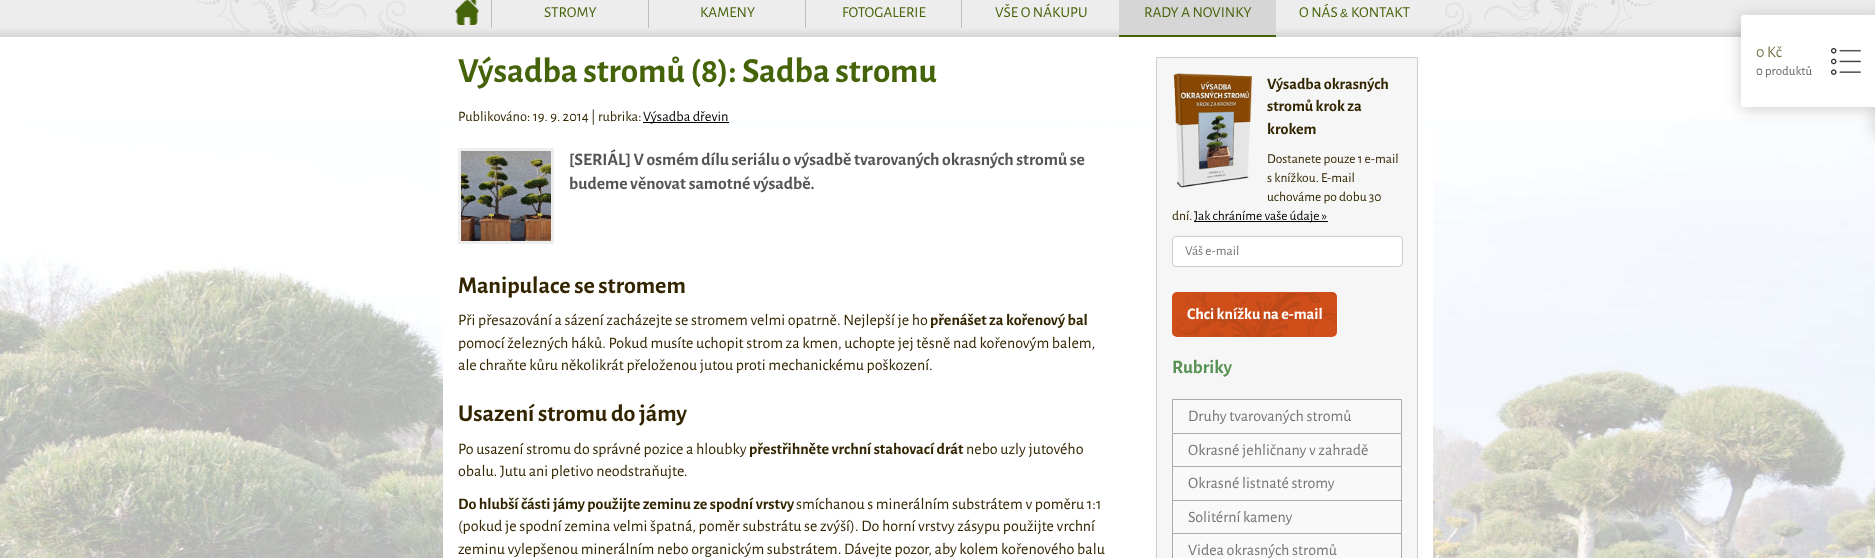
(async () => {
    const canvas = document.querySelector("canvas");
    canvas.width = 1875;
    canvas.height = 558;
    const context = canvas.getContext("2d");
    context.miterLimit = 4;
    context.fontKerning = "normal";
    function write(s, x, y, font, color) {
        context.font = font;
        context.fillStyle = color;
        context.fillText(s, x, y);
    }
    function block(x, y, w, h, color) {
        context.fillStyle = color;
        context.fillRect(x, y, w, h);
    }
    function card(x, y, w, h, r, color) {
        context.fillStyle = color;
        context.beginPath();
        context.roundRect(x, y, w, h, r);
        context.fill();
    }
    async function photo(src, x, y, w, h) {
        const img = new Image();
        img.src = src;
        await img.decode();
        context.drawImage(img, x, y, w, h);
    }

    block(0, 0, 1875, 558, "rgb(255, 255, 255)");
    await photo("media/1.png", 0, 119, 1875, 439);
    await photo("media/2.png", 0, 0, 1875, 37);
    await photo("media/3.png", 196, 0, 221, 37);
    await photo("media/4.png", 455, 0, 24, 25);
    context.save();
    context.beginPath();
    context.rect(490, 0, 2, 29);
    context.clip();
    context.fillStyle = "rgb(190, 190, 190)";
    context.filter = "blur(0.5px)";
    context.beginPath();
    context.rect(491, -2, 139, 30);
    context.fill();
    context.filter = "none";
    context.restore();
    write("STROMY", 544, 17, "15.25px Alegreya Sans", "rgb(69, 99, 8)");
    context.save();
    context.beginPath();
    context.rect(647, 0, 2, 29);
    context.clip();
    context.fillStyle = "rgb(190, 190, 190)";
    context.filter = "blur(0.5px)";
    context.beginPath();
    context.rect(648, -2, 139, 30);
    context.fill();
    context.filter = "none";
    context.restore();
    write("KAMENY", 700, 17, "15.25px Alegreya Sans", "rgb(69, 99, 8)");
    context.save();
    context.beginPath();
    context.rect(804, 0, 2, 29);
    context.clip();
    context.fillStyle = "rgb(190, 190, 190)";
    context.filter = "blur(0.5px)";
    context.beginPath();
    context.rect(805, -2, 138, 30);
    context.fill();
    context.filter = "none";
    context.restore();
    write("FOTOGALERIE", 842, 17, "15.25px Alegreya Sans", "rgb(69, 99, 8)");
    context.save();
    context.beginPath();
    context.rect(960, 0, 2, 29);
    context.clip();
    context.fillStyle = "rgb(190, 190, 190)";
    context.filter = "blur(0.5px)";
    context.beginPath();
    context.rect(961, -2, 139, 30);
    context.fill();
    context.filter = "none";
    context.restore();
    write("VŠE O NÁKUPU", 995, 17, "15.25px Alegreya Sans", "rgb(69, 99, 8)");
    block(1119, 0, 157, 35, "rgb(214, 214, 214)");
    block(1119, 35, 157, 2, "rgb(69, 99, 8)");
    write("RADY A NOVINKY", 1144, 17, "15.25px Alegreya Sans", "rgb(69, 99, 8)");
    write("O NÁS", 1299, 17, "15.25px Alegreya Sans", "rgb(69, 99, 8)");
    write("&", 1340, 17, "12px Liberation Sans", "rgb(69, 99, 8)");
    write("KONTAKT", 1351, 17, "15.25px Alegreya Sans", "rgb(69, 99, 8)");
    await photo("media/5.png", 1434, 0, 223, 37);
    block(443, 128, 990, 430, "rgb(255, 255, 255)");
    write("Výsadba stromů (8): Sadba stromu", 458, 82, "bold 35.25px Alegreya Sans", "rgb(69, 99, 8)");
    write("Publikováno: 19. 9. 2014 | rubrika:", 458, 121, "14.4px Alegreya Sans", "rgb(51, 37, 0)");
    block(643, 122, 86, 1, "rgb(0, 0, 0)");
    write("Výsadba dřevin", 643, 121, "14.4px Alegreya Sans", "rgb(0, 0, 0)");
    context.strokeStyle = "rgb(238, 238, 238)";
    context.lineWidth = 3;
    context.strokeRect(459.5, 149.5, 93, 93);
    await photo("media/6.png", 461, 151, 90, 90);
    write("[SERIÁL] V osmém dílu seriálu o výsadbě tvarovaných okrasných stromů se", 569, 165, "bold 17.6px Alegreya Sans", "rgb(85, 85, 85)");
    write("budeme věnovat samotné výsadbě.", 569, 189, "bold 17.6px Alegreya Sans", "rgb(85, 85, 85)");
    write("Manipulace se stromem", 458, 293, "bold 24px Alegreya Sans", "rgb(51, 37, 0)");
    write("Při přesazování a sázení zacházejte se stromem velmi opatrně. Nejlepší je ho", 458, 325, "16px Alegreya Sans", "rgb(51, 37, 0)");
    write("přenášet za kořenový bal", 930, 325, "bold 16px Alegreya Sans", "rgb(51, 37, 0)");
    write("pomocí železných háků. Pokud musíte uchopit strom za kmen, uchopte jej těsně nad kořenovým balem,", 458, 348, "16px Alegreya Sans", "rgb(51, 37, 0)");
    write("ale chraňte kůru několikrát přeloženou jutou proti mechanickému poškození.", 458, 370, "16px Alegreya Sans", "rgb(51, 37, 0)");
    write("Usazení stromu do jámy", 458, 421, "bold 24px Alegreya Sans", "rgb(51, 37, 0)");
    write("Po usazení stromu do správné pozice a hloubky", 458, 454, "16px Alegreya Sans", "rgb(51, 37, 0)");
    write("přestřihněte vrchní stahovací drát", 749, 454, "bold 16px Alegreya Sans", "rgb(51, 37, 0)");
    write("nebo uzly jutového", 966, 454, "16px Alegreya Sans", "rgb(51, 37, 0)");
    write("obalu. Jutu ani pletivo neodstraňujte.", 458, 476, "16px Alegreya Sans", "rgb(51, 37, 0)");
    write("Do hlubší části jámy použijte zeminu ze spodní vrstvy", 458, 509, "bold 16px Alegreya Sans", "rgb(51, 37, 0)");
    write("smíchanou s minerálním substrátem v poměru 1:1", 796, 509, "16px Alegreya Sans", "rgb(51, 37, 0)");
    write("(pokud je spodní zemina velmi špatná, poměr substrátu se zvýší). Do horní vrstvy zásypu použijte vrchní", 458, 531, "16px Alegreya Sans", "rgb(51, 37, 0)");
    write("zeminu vylepšenou minerálním nebo organickým substrátem. Dávejte pozor, aby kolem kořenového balu", 458, 554, "16px Alegreya Sans", "rgb(51, 37, 0)");
    context.fillStyle = "rgb(246, 246, 246)";
    context.beginPath();
    context.rect(1156.5, 57.5, 261, 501);
    context.fill();
    context.strokeStyle = "rgb(204, 204, 204)";
    context.lineWidth = 1;
    context.stroke();
    await photo("media/7.png", 1173, 73, 79, 115);
    write("Výsadba okrasných", 1267, 89, "bold 16px Alegreya Sans", "rgb(51, 37, 0)");
    write("stromů krok za", 1267, 111, "bold 16px Alegreya Sans", "rgb(51, 37, 0)");
    write("krokem", 1267, 134, "bold 16px Alegreya Sans", "rgb(51, 37, 0)");
    write("Dostanete pouze 1 e-mail", 1267, 163, "13.5px Alegreya Sans", "rgb(51, 37, 0)");
    write("s knížkou. E-mail", 1267, 182, "13.5px Alegreya Sans", "rgb(51, 37, 0)");
    write("uchováme po dobu 30", 1267, 201, "13.5px Alegreya Sans", "rgb(51, 37, 0)");
    write("dní.", 1172, 220, "13.5px Alegreya Sans", "rgb(51, 37, 0)");
    block(1194, 221, 134, 1, "rgb(0, 0, 0)");
    write("Jak chráníme vaše údaje »", 1194, 220, "13.5px Alegreya Sans", "rgb(0, 0, 0)");
    context.fillStyle = "rgb(255, 255, 255)";
    context.beginPath();
    context.roundRect(1172.5, 236.5, 230, 30, 3.5);
    context.fill();
    context.stroke();
    write("Váš e-mail", 1185, 255, "13.5px Alegreya Sans", "rgb(117, 117, 117)");
    card(1172, 292, 165, 45, 5, "rgb(208, 78, 25)");
    await photo("media/8.png", 1177, 293, 160, 44);
    write("Chci knížku na e-mail", 1187, 319, "bold 16px Alegreya Sans", "rgb(255, 255, 255)");
    write("Rubriky", 1172, 373, "bold 19px Alegreya Sans", "rgb(87, 146, 84)");
    context.fillStyle = "rgb(249, 249, 249)";
    context.beginPath();
    context.rect(1172.5, 399.5, 229, 34);
    context.fill();
    context.strokeStyle = "rgb(170, 170, 170)";
    context.stroke();
    write("Druhy tvarovaných stromů", 1188, 421, "16px Alegreya Sans", "rgb(117, 117, 117)");
    block(1173, 434, 228, 32, "rgb(249, 249, 249)");
    block(1401, 434, 1, 124, "rgb(170, 170, 170)");
    block(1172, 466, 230, 1, "rgb(170, 170, 170)");
    block(1172, 434, 1, 33, "rgb(170, 170, 170)");
    write("Okrasné jehličnany v zahradě", 1188, 455, "16px Alegreya Sans", "rgb(117, 117, 117)");
    block(1173, 467, 228, 33, "rgb(249, 249, 249)");
    block(1172, 500, 230, 1, "rgb(170, 170, 170)");
    block(1172, 467, 1, 34, "rgb(170, 170, 170)");
    write("Okrasné listnaté stromy", 1188, 488, "16px Alegreya Sans", "rgb(117, 117, 117)");
    block(1173, 501, 228, 32, "rgb(249, 249, 249)");
    block(1172, 533, 230, 1, "rgb(170, 170, 170)");
    block(1172, 501, 1, 57, "rgb(170, 170, 170)");
    write("Solitérní kameny", 1188, 522, "16px Alegreya Sans", "rgb(117, 117, 117)");
    block(1173, 534, 228, 24, "rgb(249, 249, 249)");
    write("Videa okrasných stromů", 1188, 555, "16px Alegreya Sans", "rgb(117, 117, 117)");
    context.fillStyle = "rgba(0, 0, 0, 0.2)";
    context.filter = "blur(8px)";
    context.beginPath();
    context.roundRect(1741, 17, 134, 92, 3);
    context.fill();
    context.filter = "none";
    context.filter = "blur(8px)";
    context.beginPath();
    context.roundRect(1875, 17, 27, 119, 3);
    context.fill();
    context.filter = "none";
    context.fillStyle = "rgb(255, 255, 255)";
    context.beginPath();
    context.roundRect(1741, 15, 134, 92, [3, 0, 0, 3]);
    context.fill();
    await photo("media/9.png", 1831, 48, 30, 27);
    write("0 Kč", 1756, 57, "16px Alegreya Sans", "rgb(117, 116, 73)");
    write("0 produktů", 1756, 75, "13px Alegreya Sans", "rgb(102, 102, 102)");
})();
